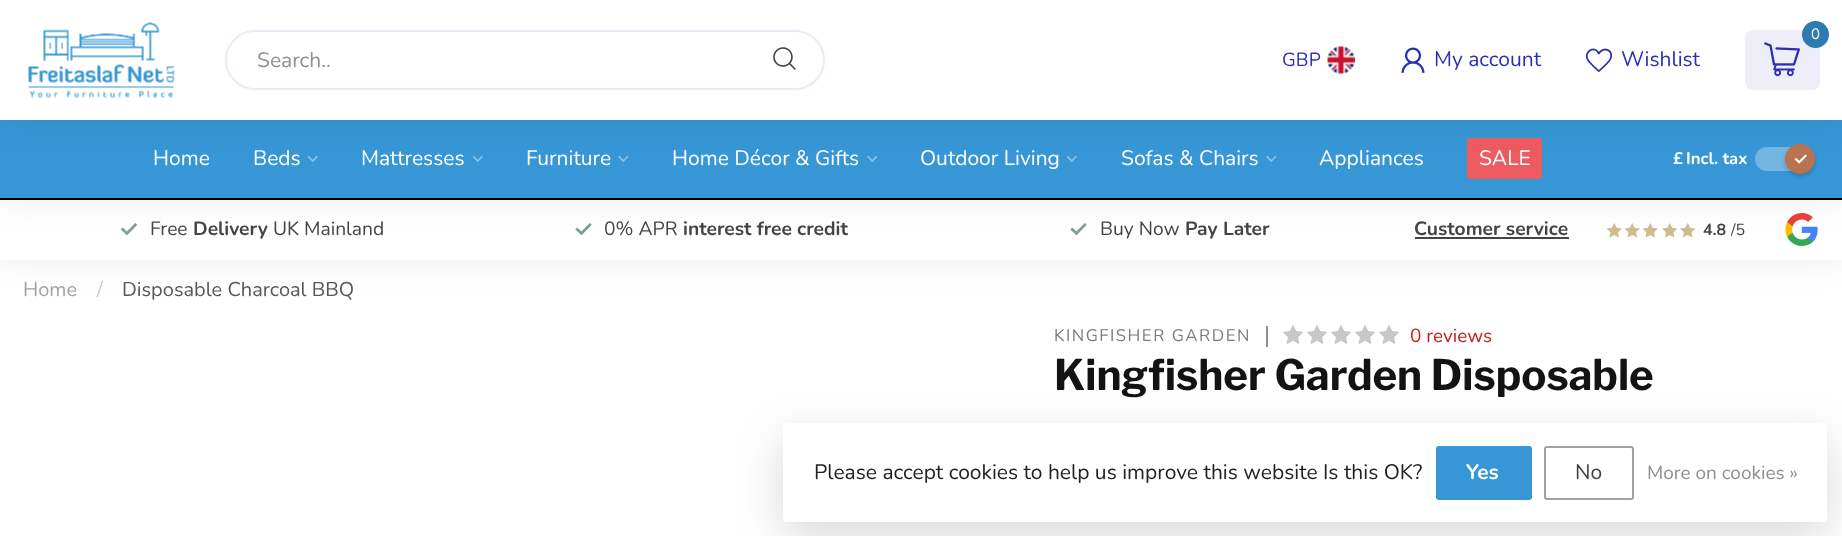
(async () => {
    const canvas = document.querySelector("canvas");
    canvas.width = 1842;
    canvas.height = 536;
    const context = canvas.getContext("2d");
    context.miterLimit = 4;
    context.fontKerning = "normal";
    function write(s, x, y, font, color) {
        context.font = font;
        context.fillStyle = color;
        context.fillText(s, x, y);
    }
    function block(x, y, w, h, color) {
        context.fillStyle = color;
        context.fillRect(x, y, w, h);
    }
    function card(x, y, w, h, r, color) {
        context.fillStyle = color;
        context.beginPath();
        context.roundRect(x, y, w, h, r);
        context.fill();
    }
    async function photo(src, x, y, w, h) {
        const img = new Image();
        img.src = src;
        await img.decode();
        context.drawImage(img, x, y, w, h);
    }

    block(0, 0, 1842, 536, "rgb(255, 255, 255)");
    context.fillStyle = "rgba(0, 0, 0, 0.08)";
    context.filter = "blur(16.5px)";
    context.beginPath();
    context.rect(0, 200, 1842, 60);
    context.fill();
    context.filter = "none";
    block(0, 200, 1842, 60, "rgb(255, 255, 255)");
    await photo("media/10.png", 120, 223, 18, 13);
    await photo("media/11.png", 575, 223, 17, 13);
    await photo("media/11.png", 1070, 223, 17, 13);
    block(1415, 237, 154, 2, "rgb(68, 68, 68)");
    await photo("media/12.png", 1606, 223, 16, 15);
    await photo("media/12.png", 1624, 223, 16, 15);
    await photo("media/12.png", 1642, 223, 16, 15);
    await photo("media/13.png", 1662, 223, 16, 15);
    await photo("media/13.png", 1680, 223, 16, 15);
    await photo("media/14.png", 1785, 213, 33, 33);
    context.fillStyle = "rgba(0, 0, 0, 0.08)";
    context.filter = "blur(16.5px)";
    context.beginPath();
    context.rect(0, 120, 1842, 80);
    context.fill();
    context.filter = "none";
    block(0, 120, 1842, 78, "rgb(55, 151, 214)");
    await photo("media/7.png", 307, 155, 11, 7);
    await photo("media/7.png", 472, 155, 11, 7);
    await photo("media/8.png", 618, 155, 11, 7);
    await photo("media/8.png", 867, 155, 11, 7);
    await photo("media/7.png", 1066, 155, 11, 7);
    await photo("media/8.png", 1266, 155, 11, 7);
    card(1467, 138, 75, 41, 3, "rgb(237, 91, 97)");
    card(1755, 147, 57, 24, 12, "rgb(115, 182, 226)");
    context.fillStyle = "rgba(0, 0, 0, 0.2)";
    context.filter = "blur(2px)";
    context.beginPath();
    context.roundRect(1785, 146, 30, 30, 15);
    context.fill();
    context.filter = "none";
    context.fillStyle = "rgb(184, 116, 78)";
    context.beginPath();
    context.arc(1800, 159, 15, 0, Math.PI * 2);
    context.fill();
    await photo("media/9.png", 1794, 154, 13, 10);
    context.fillStyle = "rgba(0, 0, 0, 0.08)";
    context.filter = "blur(16.5px)";
    context.beginPath();
    context.rect(0, 0, 1842, 120);
    context.fill();
    context.filter = "none";
    block(0, 0, 1842, 120, "rgb(255, 255, 255)");
    await photo("media/1.png", 28, 22, 147, 76);
    context.beginPath();
    context.roundRect(226, 31, 598, 58, 29);
    context.strokeStyle = "rgb(234, 234, 247)";
    context.lineWidth = 2;
    context.stroke();
    write("Search..", 257, 67, "21px Nunito", "rgb(143, 143, 143)");
    await photo("media/2.png", 773, 47, 23, 23);
    card(1745, 30, 75, 60, 8, "rgb(237, 238, 248)");
    context.fillStyle = "rgb(46, 124, 175)";
    context.beginPath();
    context.arc(1815.5, 34.5, 13.5, 0, Math.PI * 2);
    context.fill();
    write("0", 1811, 39, "15px Nunito", "rgb(255, 255, 255)");
    await photo("media/3.png", 1764, 42, 36, 35);
    write("GBP", 1282, 66, "19px Nunito", "rgb(46, 49, 175)");
    await photo("media/4.png", 1327, 46, 28, 28);
    await photo("media/5.png", 1401, 47, 24, 26);
    write("My account", 1434, 66, "21px Nunito", "rgb(46, 49, 175)");
    await photo("media/6.png", 1585, 48, 28, 24);
    write("Wishlist", 1621, 66, "21px Nunito", "rgb(46, 49, 175)");
    block(0, 198, 1842, 2, "rgb(0, 0, 0)");
    write("Home", 153, 165, "21px Nunito", "rgb(255, 255, 255)");
    write("Beds", 253, 165, "21px Nunito", "rgb(255, 255, 255)");
    write("Mattresses", 361, 165, "21px Nunito", "rgb(255, 255, 255)");
    write("Furniture", 526, 165, "21px Nunito", "rgb(255, 255, 255)");
    write("Home Décor & Gifts", 672, 165, "21px Nunito", "rgb(255, 255, 255)");
    write("Outdoor Living", 920, 165, "21px Nunito", "rgb(255, 255, 255)");
    write("Sofas & Chairs", 1121, 165, "21px Nunito", "rgb(255, 255, 255)");
    write("Appliances", 1319, 165, "21px Nunito", "rgb(255, 255, 255)");
    write("SALE", 1479, 165, "21px Nunito", "rgb(255, 255, 255)");
    write("£", 1673, 164, "bold 16.75px Nunito", "rgb(255, 255, 255)");
    write("Incl. tax", 1686, 164, "bold 16.75px Nunito", "rgb(255, 255, 255)");
    write("Free", 150, 235, "19.25px Nunito", "rgb(68, 68, 68)");
    write("Delivery", 193, 235, "bold 19.25px Nunito", "rgb(68, 68, 68)");
    write("UK Mainland", 273, 235, "19.25px Nunito", "rgb(68, 68, 68)");
    write("0% APR", 604, 235, "19.25px Nunito", "rgb(68, 68, 68)");
    write("interest free credit", 683, 235, "bold 19.25px Nunito", "rgb(68, 68, 68)");
    write("Buy Now", 1100, 235, "19.25px Nunito", "rgb(68, 68, 68)");
    write("Pay Later", 1185, 235, "bold 19.25px Nunito", "rgb(68, 68, 68)");
    write("Customer service", 1414, 235, "bold 19.25px Nunito", "rgb(68, 68, 68)");
    write("4.8", 1703, 235, "bold 16px Nunito", "rgb(68, 68, 68)");
    write("/5", 1731, 235, "16px Nunito", "rgb(68, 68, 68)");
    write("Home", 23, 296, "20px Nunito", "rgb(162, 162, 162)");
    write("/", 97, 296, "20px Nunito", "rgb(199, 199, 199)");
    write("Disposable Charcoal BBQ", 122, 296, "20px Nunito", "rgb(87, 87, 87)");
    context.letterSpacing = "1.5px";
    write("KINGFISHER GARDEN", 1054, 341, "16.75px Nunito", "rgb(124, 124, 124)");
    block(1266, 326, 2, 21, "rgb(143, 143, 143)");
    await photo("media/15.png", 1282, 324, 22, 21);
    await photo("media/15.png", 1306, 324, 22, 21);
    await photo("media/15.png", 1330, 324, 22, 21);
    await photo("media/15.png", 1354, 324, 22, 21);
    await photo("media/15.png", 1378, 324, 22, 21);
    context.letterSpacing = "0px";
    write("0 reviews", 1410, 342, "19px Nunito", "rgb(195, 30, 30)");
    write("Kingfisher Garden Disposable", 1054, 390, "bold 42px Libre Franklin", "rgb(19, 19, 19)");
    context.fillStyle = "rgba(0, 0, 0, 0.15)";
    context.filter = "blur(22.5px)";
    context.beginPath();
    context.roundRect(783, 438, 1044, 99, 3);
    context.fill();
    context.filter = "none";
    card(783, 423, 1044, 99, 3, "rgb(255, 255, 255)");
    write("Please accept cookies to help us improve this website Is this OK?", 814, 479, "21px Nunito", "rgb(34, 34, 34)");
    card(1436, 446, 96, 54, 3, "rgb(55, 151, 214)");
    write("Yes", 1466, 479, "bold 21px Nunito", "rgb(255, 255, 255)");
    context.beginPath();
    context.roundRect(1545, 447, 88, 52, 2);
    context.strokeStyle = "rgb(161, 161, 161)";
    context.stroke();
    write("No", 1575, 479, "21px Nunito", "rgb(68, 68, 68)");
    write("More on cookies »", 1647, 479, "19px Nunito", "rgb(143, 143, 143)");
})();
